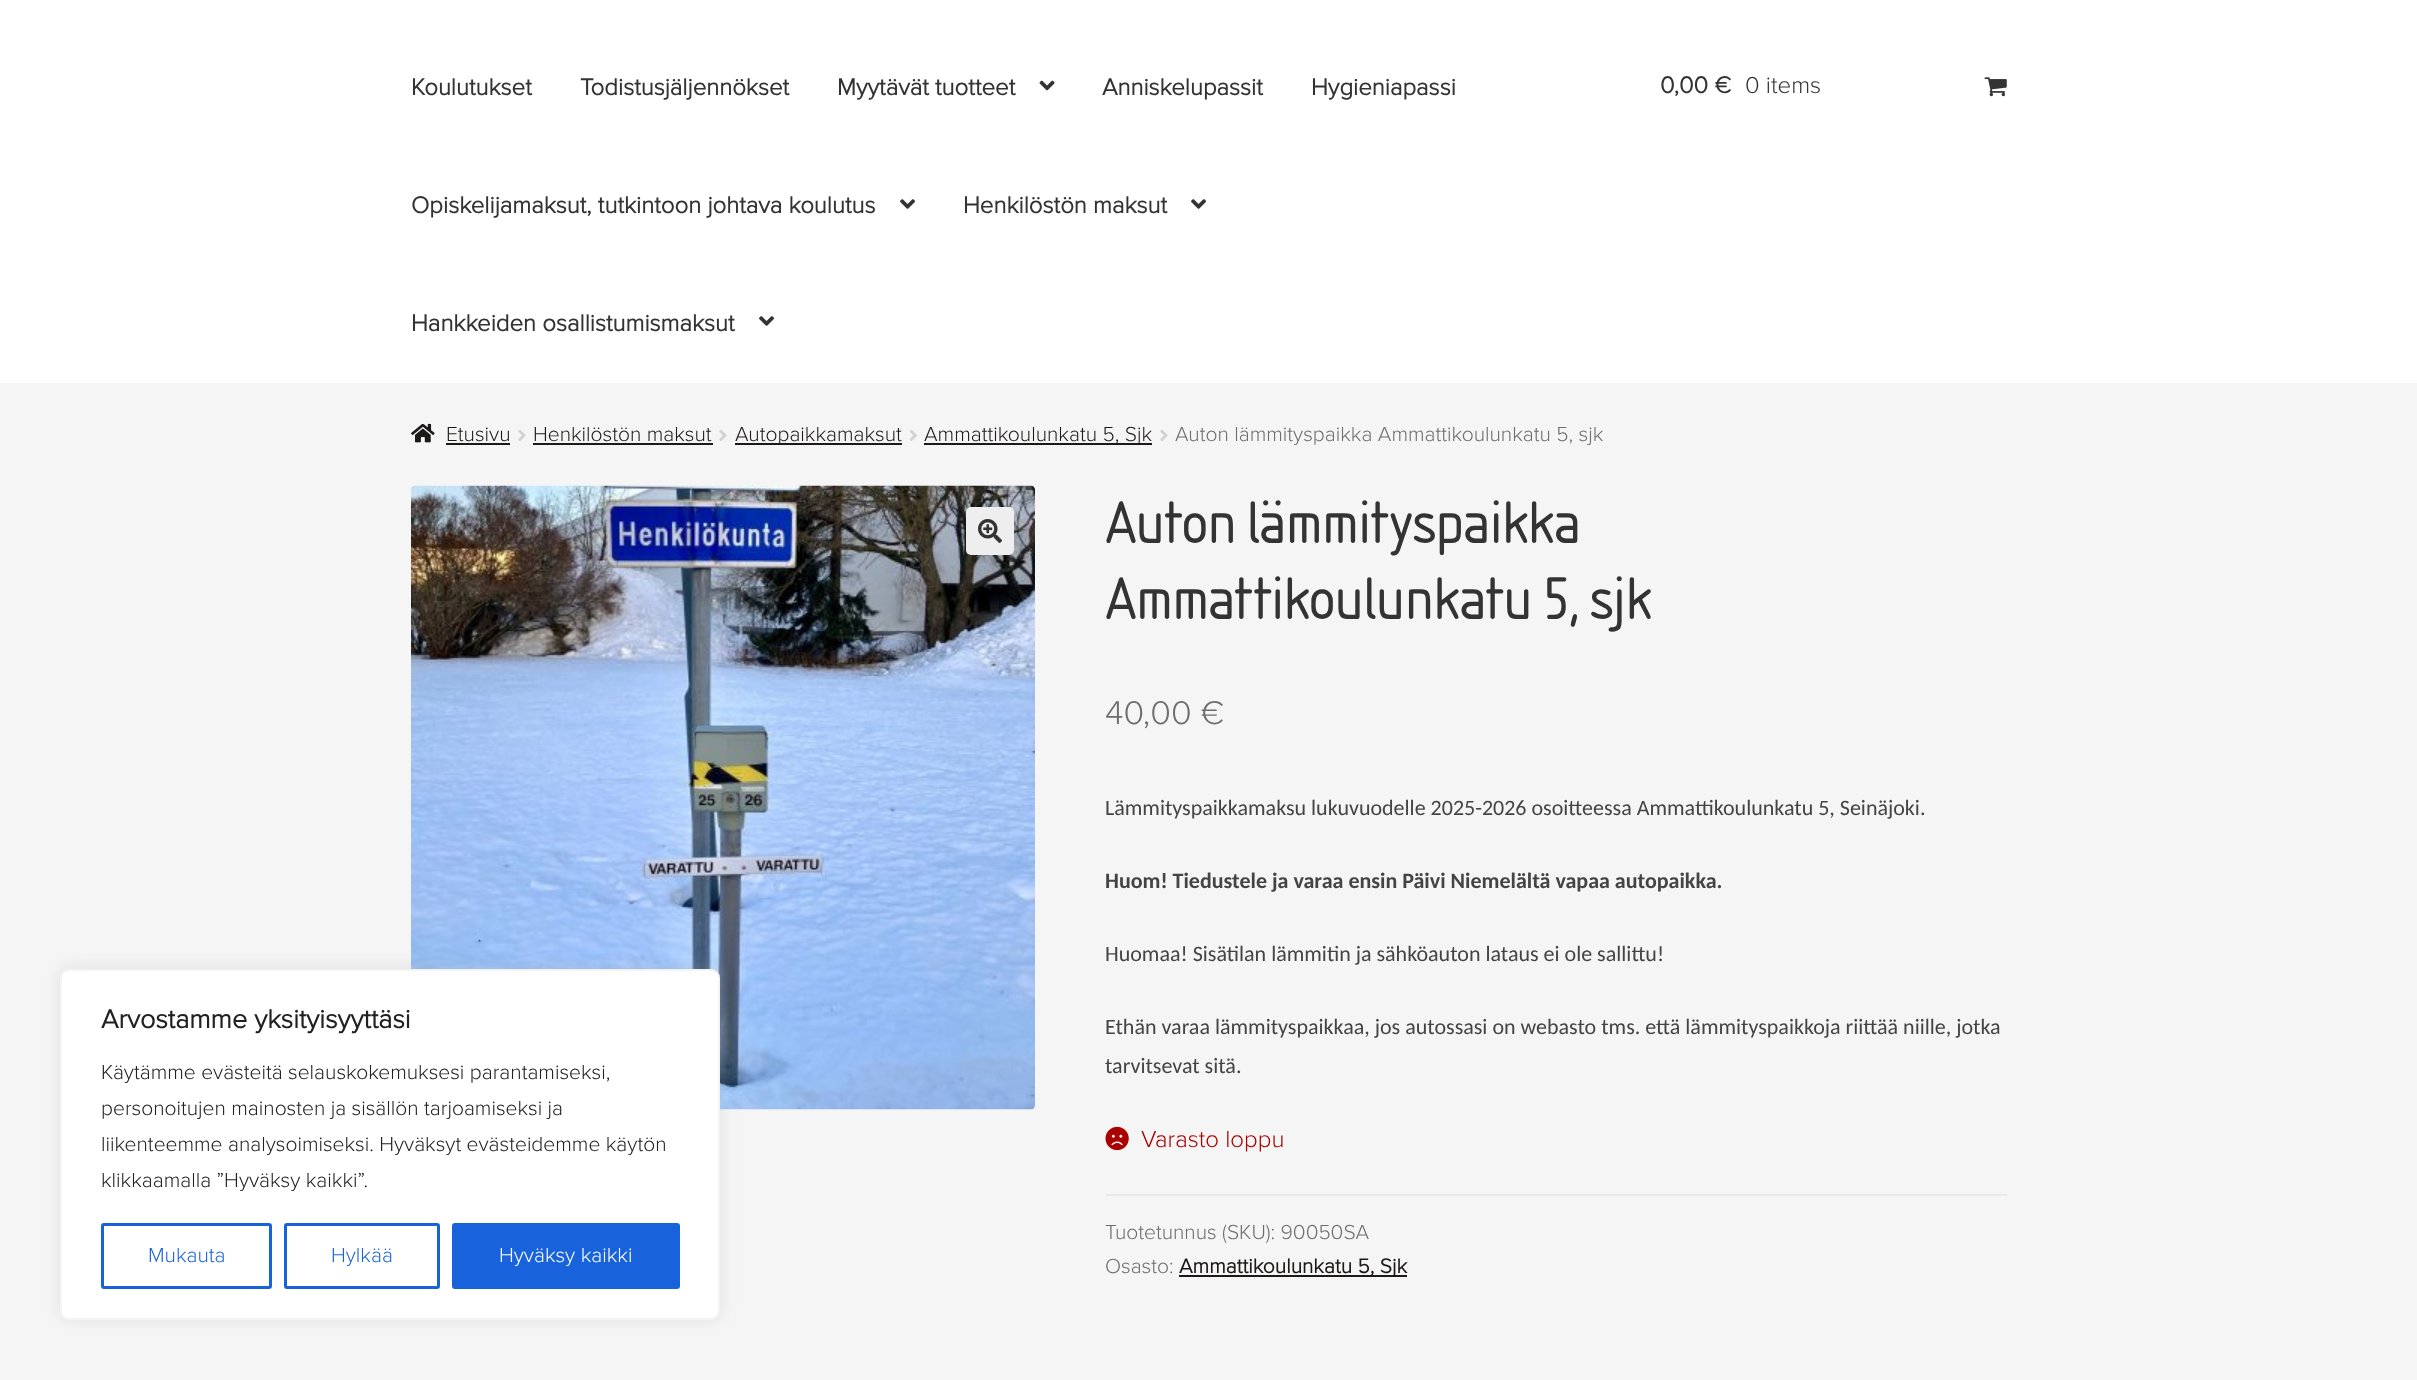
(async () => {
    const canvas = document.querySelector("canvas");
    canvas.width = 2417;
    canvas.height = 1380;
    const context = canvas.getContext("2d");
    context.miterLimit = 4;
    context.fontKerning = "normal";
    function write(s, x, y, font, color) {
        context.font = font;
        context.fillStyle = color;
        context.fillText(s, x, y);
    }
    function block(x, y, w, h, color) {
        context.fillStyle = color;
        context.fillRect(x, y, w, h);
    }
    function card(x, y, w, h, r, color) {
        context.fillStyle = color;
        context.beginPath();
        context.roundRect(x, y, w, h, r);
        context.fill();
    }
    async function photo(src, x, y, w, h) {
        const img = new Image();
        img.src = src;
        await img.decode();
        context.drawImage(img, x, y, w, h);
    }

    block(0, 0, 2417, 1380, "rgb(245, 245, 246)");
    await photo("media/7.png", 411, 485, 624, 625);
    context.fillStyle = "rgba(172, 171, 171, 0.3)";
    context.filter = "blur(7.5px)";
    context.beginPath();
    context.roundRect(60, 968, 660, 351, 9);
    context.fill();
    context.filter = "none";
    context.fillStyle = "rgb(255, 255, 255)";
    context.beginPath();
    context.roundRect(61, 970, 658, 349, 8);
    context.fill();
    context.strokeStyle = "rgb(244, 244, 244)";
    context.lineWidth = 2;
    context.stroke();
    write("Arvostamme yksityisyyttäsi", 101, 1028, "bold 27px Proxima Nova", "rgb(33, 33, 33)");
    write("Käytämme evästeitä selauskokemuksesi parantamiseksi,", 101, 1079, "300 21px Proxima Nova", "rgb(33, 33, 33)");
    write("personoitujen mainosten ja sisällön tarjoamiseksi ja", 101, 1115, "300 21px Proxima Nova", "rgb(33, 33, 33)");
    write("liikenteemme analysoimiseksi. Hyväksyt evästeidemme käytön", 101, 1151, "300 21px Proxima Nova", "rgb(33, 33, 33)");
    write("klikkaamalla ”Hyväksy kaikki”.", 101, 1187, "300 21px Proxima Nova", "rgb(33, 33, 33)");
    context.beginPath();
    context.roundRect(102.5, 1224.5, 168, 63, 1.5);
    context.strokeStyle = "rgb(24, 99, 220)";
    context.lineWidth = 3;
    context.stroke();
    write("Mukauta", 148, 1262, "300 21px Proxima Nova", "rgb(24, 99, 220)");
    context.beginPath();
    context.roundRect(285.5, 1224.5, 153, 63, 1.5);
    context.stroke();
    write("Hylkää", 331, 1262, "300 21px Proxima Nova", "rgb(24, 99, 220)");
    context.beginPath();
    context.roundRect(453.5, 1224.5, 225, 63, 1.5);
    context.fill();
    context.stroke();
    write("Hyväksy kaikki", 499, 1262, "300 21px Proxima Nova", "rgb(255, 255, 255)");
    block(0, 0, 2417, 383, "rgb(255, 255, 255)");
    write("Koulutukset", 411, 95, "bold 24px Proxima Nova", "rgb(51, 51, 51)");
    write("Todistusjäljennökset", 580, 95, "bold 24px Proxima Nova", "rgb(51, 51, 51)");
    write("Myytävät tuotteet", 837, 95, "bold 24px Proxima Nova", "rgb(51, 51, 51)");
    await photo("media/1.png", 1039, 80, 16, 11);
    write("Anniskelupassit", 1102, 95, "bold 24px Proxima Nova", "rgb(51, 51, 51)");
    write("Hygieniapassi", 1311, 95, "bold 24px Proxima Nova", "rgb(51, 51, 51)");
    write("Opiskelijamaksut, tutkintoon johtava koulutus", 411, 213, "bold 24px Proxima Nova", "rgb(51, 51, 51)");
    await photo("media/2.png", 900, 199, 15, 10);
    write("Henkilöstön maksut", 963, 213, "bold 24px Proxima Nova", "rgb(51, 51, 51)");
    await photo("media/2.png", 1191, 199, 15, 10);
    write("Hankkeiden osallistumismaksut", 411, 331, "bold 24px Proxima Nova", "rgb(51, 51, 51)");
    await photo("media/2.png", 759, 316, 15, 10);
    write("0,00 €", 1660, 93, "bold 24px Proxima Nova", "rgb(51, 51, 51)");
    write("0 items", 1745, 93, "300 24px Proxima Nova", "rgb(51, 51, 51)");
    await photo("media/3.png", 1984, 77, 23, 20);
    await photo("media/4.png", 411, 423, 24, 20);
    write("Etusivu", 446, 441, "300 21px Proxima Nova", "rgb(28, 26, 24)");
    block(446, 443, 64, 2, "rgb(28, 26, 24)");
    await photo("media/5.png", 518, 429, 8, 12);
    write("Henkilöstön maksut", 533, 441, "300 21px Proxima Nova", "rgb(28, 26, 24)");
    block(533, 443, 180, 2, "rgb(28, 26, 24)");
    await photo("media/5.png", 719, 429, 8, 12);
    block(735, 443, 167, 2, "rgb(28, 26, 24)");
    write("Autopaikkamaksut", 735, 441, "300 21px Proxima Nova", "rgb(28, 26, 24)");
    await photo("media/6.png", 909, 429, 8, 12);
    block(924, 443, 228, 2, "rgb(28, 26, 24)");
    write("Ammattikoulunkatu 5, Sjk", 924, 441, "300 21px Proxima Nova", "rgb(28, 26, 24)");
    await photo("media/5.png", 1160, 429, 8, 12);
    write("Auton lämmityspaikka Ammattikoulunkatu 5, sjk", 1175, 441, "300 21px Proxima Nova", "rgb(109, 109, 109)");
    card(966, 507, 48, 48, 5, "rgb(238, 238, 238)");
    await photo("media/8.png", 978, 519, 24, 24);
    context.letterSpacing = "-1.5px";
    write("Auton lämmityspaikka", 1105, 543, "62.75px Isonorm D", "rgb(51, 51, 51)");
    write("Ammattikoulunkatu 5, sjk", 1105, 619, "62.75px Isonorm D", "rgb(51, 51, 51)");
    context.letterSpacing = "0px";
    write("40,00 €", 1105, 724, "300 34px Proxima Nova", "rgb(109, 109, 109)");
    write("Lämmityspaikkamaksu lukuvuodelle 2025-2026 osoitteessa Ammattikoulunkatu 5, Seinäjoki.", 1105, 815, "22px Carlito", "rgb(68, 68, 68)");
    write("Huom! Tiedustele ja varaa ensin Päivi Niemelältä vapaa autopaikka.", 1105, 888, "bold 22px Carlito", "rgb(68, 68, 68)");
    write("Huomaa! Sisätilan lämmitin ja sähköauton lataus ei ole sallittu!", 1105, 961, "22px Carlito", "rgb(68, 68, 68)");
    write("Ethän varaa lämmityspaikkaa, jos autossasi on webasto tms. että lämmityspaikkoja riittää niille, jotka", 1105, 1034, "22px Carlito", "rgb(68, 68, 68)");
    write("tarvitsevat sitä.", 1105, 1073, "22px Carlito", "rgb(68, 68, 68)");
    await photo("media/9.png", 1105, 1126, 24, 25);
    write("Varasto loppu", 1141, 1147, "300 24px Proxima Nova", "rgb(170, 0, 0)");
    block(1106, 1194, 901, 2, "rgb(233, 233, 234)");
    write("Tuotetunnus (SKU): 90050SA", 1105, 1239, "300 21px Proxima Nova", "rgb(109, 109, 109)");
    write("Osasto:", 1105, 1273, "300 21px Proxima Nova", "rgb(109, 109, 109)");
    block(1179, 1275, 228, 2, "rgb(28, 26, 24)");
    write("Ammattikoulunkatu 5, Sjk", 1179, 1273, "bold 21px Proxima Nova", "rgb(28, 26, 24)");
})();
